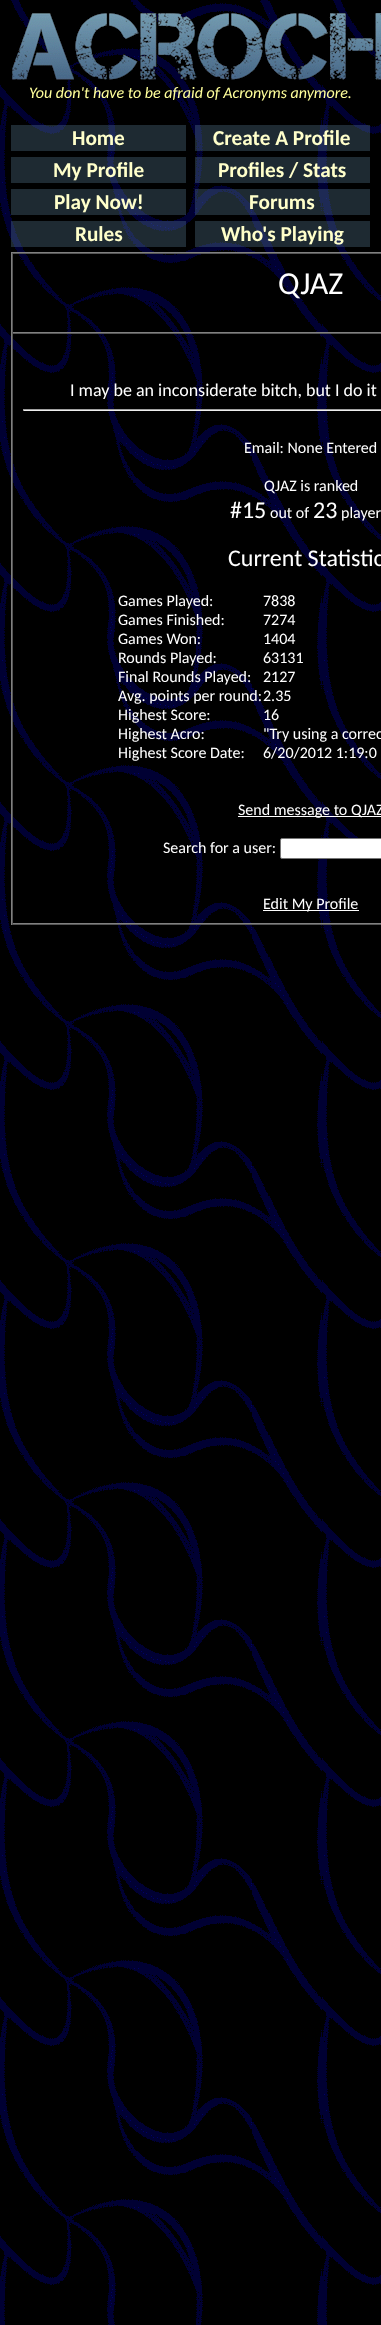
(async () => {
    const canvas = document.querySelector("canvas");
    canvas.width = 381;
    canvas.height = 2325;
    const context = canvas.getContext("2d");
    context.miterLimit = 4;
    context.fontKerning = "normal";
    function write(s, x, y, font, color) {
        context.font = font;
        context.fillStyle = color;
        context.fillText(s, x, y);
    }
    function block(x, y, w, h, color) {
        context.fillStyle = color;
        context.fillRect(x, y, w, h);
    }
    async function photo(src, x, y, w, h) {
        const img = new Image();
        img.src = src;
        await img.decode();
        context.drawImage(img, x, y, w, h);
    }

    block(0, 0, 381, 2325, "rgb(255, 255, 255)");
    await photo("media/1.png", 0, 0, 381, 2325);
    await photo("media/2.png", 12, 13, 369, 67);
    write("You don't have to be afraid of Acronyms anymore.", 29, 98, "italic 16px Carlito", "rgb(255, 255, 155)");
    block(11, 125, 175, 26, "rgba(101, 138, 166, 0.3)");
    write("Home", 72, 145, "bold 21.25px Carlito", "rgb(255, 255, 202)");
    block(195, 125, 175, 26, "rgba(101, 138, 166, 0.3)");
    write("Create A Profile", 213, 145, "bold 21.25px Carlito", "rgb(255, 255, 202)");
    block(11, 157, 175, 26, "rgba(101, 138, 166, 0.3)");
    write("My Profile", 53, 177, "bold 21.25px Carlito", "rgb(255, 255, 202)");
    block(195, 157, 175, 26, "rgba(101, 138, 166, 0.3)");
    write("Profiles / Stats", 218, 177, "bold 21.25px Carlito", "rgb(255, 255, 202)");
    block(11, 189, 175, 26, "rgba(101, 138, 166, 0.3)");
    write("Play Now!", 54, 209, "bold 21.25px Carlito", "rgb(255, 255, 202)");
    block(195, 189, 175, 26, "rgba(101, 138, 166, 0.3)");
    write("Forums", 249, 209, "bold 21.25px Carlito", "rgb(255, 255, 202)");
    block(11, 221, 175, 26, "rgba(101, 138, 166, 0.3)");
    write("Rules", 75, 241, "bold 21.25px Carlito", "rgb(255, 255, 202)");
    block(195, 221, 175, 26, "rgba(101, 138, 166, 0.3)");
    write("Who's Playing", 221, 241, "bold 21.25px Carlito", "rgb(255, 255, 202)");
    block(11, 252, 370, 1, "rgb(128, 128, 128)");
    block(11, 924, 370, 1, "rgb(85, 85, 85)");
    block(11, 252, 1, 673, "rgb(128, 128, 128)");
    block(12, 253, 369, 1, "rgb(85, 85, 85)");
    block(12, 332, 369, 1, "rgb(128, 128, 128)");
    block(12, 253, 1, 80, "rgb(85, 85, 85)");
    write("QJAZ", 278, 294, "32px Carlito", "rgb(255, 255, 255)");
    block(12, 333, 369, 1, "rgb(85, 85, 85)");
    block(12, 923, 369, 1, "rgb(128, 128, 128)");
    block(12, 333, 1, 591, "rgb(85, 85, 85)");
    write("I may be an inconsiderate bitch, but I do it", 70, 396, "18px Carlito", "rgb(255, 255, 255)");
    block(23, 409, 358, 1, "rgb(159, 159, 159)");
    block(23, 410, 358, 1, "rgb(238, 238, 238)");
    block(23, 409, 1, 2, "rgb(159, 159, 159)");
    write("Email: None Entered", 244, 453, "16px Carlito", "rgb(255, 255, 255)");
    write("QJAZ is ranked", 264, 491, "16px Carlito", "rgb(255, 255, 255)");
    write("#15", 230, 518, "24px Carlito", "rgb(255, 255, 255)");
    write("out of", 270, 518, "16px Carlito", "rgb(255, 255, 255)");
    write("23", 313, 518, "24px Carlito", "rgb(255, 255, 255)");
    write("player", 341, 518, "16px Carlito", "rgb(255, 255, 255)");
    write("Current Statistic", 228, 566, "24px Carlito", "rgb(255, 255, 255)");
    write("Games Played:", 118, 606, "16px Carlito", "rgb(255, 255, 255)");
    write("7838", 263, 606, "16px Carlito", "rgb(255, 255, 255)");
    write("Games Finished:", 118, 625, "16px Carlito", "rgb(255, 255, 255)");
    write("7274", 263, 625, "16px Carlito", "rgb(255, 255, 255)");
    write("Games Won:", 118, 644, "16px Carlito", "rgb(255, 255, 255)");
    write("1404", 263, 644, "16px Carlito", "rgb(255, 255, 255)");
    write("Rounds Played:", 118, 663, "16px Carlito", "rgb(255, 255, 255)");
    write("63131", 263, 663, "16px Carlito", "rgb(255, 255, 255)");
    write("Final Rounds Played:", 118, 682, "16px Carlito", "rgb(255, 255, 255)");
    write("2127", 263, 682, "16px Carlito", "rgb(255, 255, 255)");
    write("Avg. points per round:", 118, 701, "16px Carlito", "rgb(255, 255, 255)");
    write("2.35", 263, 701, "16px Carlito", "rgb(255, 255, 255)");
    write("Highest Score:", 118, 720, "16px Carlito", "rgb(255, 255, 255)");
    write("16", 263, 720, "16px Carlito", "rgb(255, 255, 255)");
    write("Highest Acro:", 118, 739, "16px Carlito", "rgb(255, 255, 255)");
    write("\"Try using a correc", 263, 739, "16px Carlito", "rgb(255, 255, 255)");
    write("Highest Score Date:", 118, 758, "16px Carlito", "rgb(255, 255, 255)");
    write("6/20/2012 1:19:0", 263, 758, "16px Carlito", "rgb(255, 255, 255)");
    block(238, 816, 143, 1, "rgb(255, 255, 255)");
    write("Send message to QJAZ", 238, 815, "16px Carlito", "rgb(255, 255, 255)");
    write("Search for a user:", 163, 853, "16px Carlito", "rgb(255, 255, 255)");
    context.beginPath();
    context.roundRect(280.5, 838.5, 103, 20, 1.5);
    context.fill();
    context.strokeStyle = "rgb(118, 118, 118)";
    context.stroke();
    block(263, 910, 96, 1, "rgb(255, 255, 255)");
    write("Edit My Profile", 263, 909, "16px Carlito", "rgb(255, 255, 255)");
})();
